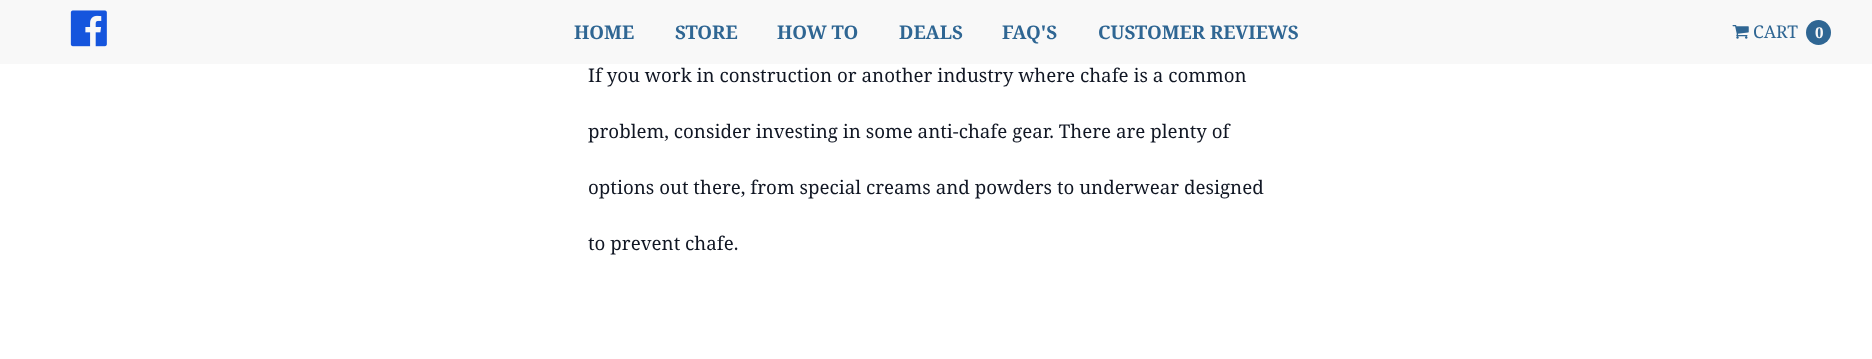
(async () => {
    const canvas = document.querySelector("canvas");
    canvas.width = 1872;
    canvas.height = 359;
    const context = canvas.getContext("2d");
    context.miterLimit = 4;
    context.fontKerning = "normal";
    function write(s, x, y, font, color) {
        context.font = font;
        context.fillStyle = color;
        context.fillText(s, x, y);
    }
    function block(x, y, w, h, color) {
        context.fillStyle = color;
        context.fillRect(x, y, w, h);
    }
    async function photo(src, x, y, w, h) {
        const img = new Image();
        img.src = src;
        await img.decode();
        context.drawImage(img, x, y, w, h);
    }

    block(0, 0, 1872, 359, "rgb(255, 255, 255)");
    block(0, 0, 1872, 64, "rgb(248, 248, 248)");
    await photo("media/1.png", 70, 10, 37, 37);
    write("HOME", 574, 39, "bold 18.75px Noto Serif", "rgb(47, 102, 147)");
    write("STORE", 675, 39, "bold 18.75px Noto Serif", "rgb(47, 102, 147)");
    write("HOW TO", 777, 39, "bold 18.75px Noto Serif", "rgb(47, 102, 147)");
    write("DEALS", 899, 39, "bold 18.75px Noto Serif", "rgb(47, 102, 147)");
    write("FAQ'S", 1002, 39, "bold 18.75px Noto Serif", "rgb(47, 102, 147)");
    write("CUSTOMER REVIEWS", 1098, 39, "bold 18.75px Noto Serif", "rgb(47, 102, 147)");
    await photo("media/2.png", 1732, 25, 17, 14);
    write("CART", 1753, 38, "17.5px Noto Serif", "rgb(47, 102, 147)");
    context.beginPath();
    context.arc(1818.5, 32.5, 12.5, 0, Math.PI * 2);
    context.fill();
    write("0", 1815, 38, "bold 15px Noto Serif", "rgb(248, 248, 248)");
    write("If you work in construction or another industry where chafe is a common", 588, 82, "18.75px Noto Serif", "rgb(16, 22, 35)");
    write("problem, consider investing in some anti-chafe gear. There are plenty of", 588, 138, "18.75px Noto Serif", "rgb(16, 22, 35)");
    write("options out there, from special creams and powders to underwear designed", 588, 194, "18.75px Noto Serif", "rgb(16, 22, 35)");
    write("to prevent chafe.", 588, 250, "18.75px Noto Serif", "rgb(16, 22, 35)");
})();
